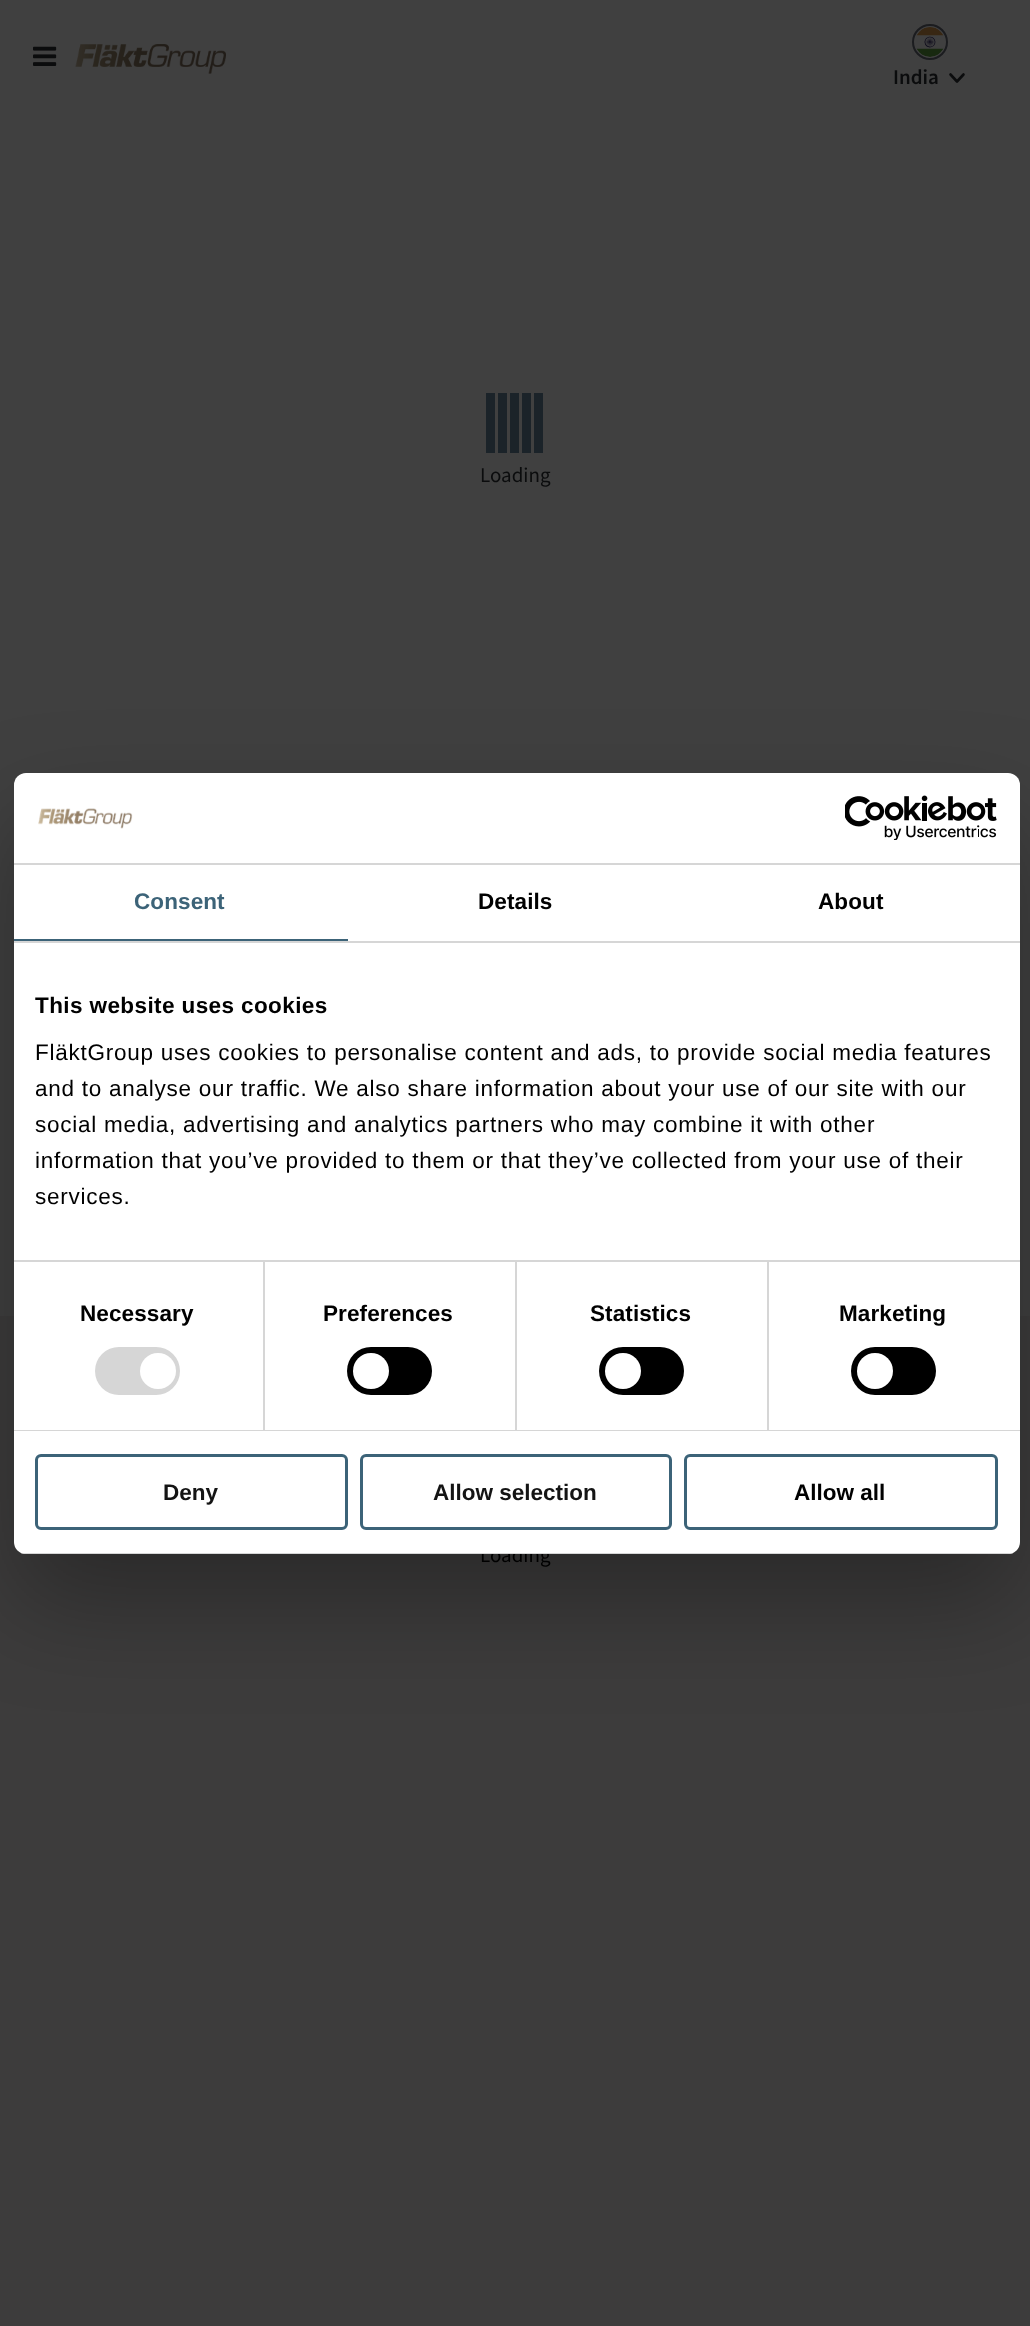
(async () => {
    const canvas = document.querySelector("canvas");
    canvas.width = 1030;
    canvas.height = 2326;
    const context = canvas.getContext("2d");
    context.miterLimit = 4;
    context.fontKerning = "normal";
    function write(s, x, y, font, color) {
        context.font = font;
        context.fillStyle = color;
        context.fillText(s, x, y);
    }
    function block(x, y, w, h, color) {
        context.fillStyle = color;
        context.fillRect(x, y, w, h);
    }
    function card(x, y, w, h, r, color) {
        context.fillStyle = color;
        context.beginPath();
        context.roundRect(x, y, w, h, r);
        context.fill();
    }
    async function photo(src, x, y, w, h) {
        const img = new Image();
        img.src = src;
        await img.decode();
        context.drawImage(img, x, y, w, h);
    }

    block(0, 0, 1030, 2326, "rgb(64, 64, 64)");
    await photo("media/1.png", 33, 46, 24, 20);
    await photo("media/2.png", 75, 44, 151, 30);
    context.beginPath();
    context.arc(930, 42, 17, 0, Math.PI * 2);
    context.strokeStyle = "rgb(27, 28, 31)";
    context.lineWidth = 2;
    context.stroke();
    await photo("media/3.png", 916, 27, 28, 30);
    write("India", 893, 84, "600 21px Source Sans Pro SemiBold", "rgb(11, 12, 13)");
    context.beginPath();
    context.moveTo(963.5, 74.5);
    context.lineTo(957, 81.5);
    context.lineTo(950.5, 74.5);
    context.strokeStyle = "rgb(11, 12, 13)";
    context.lineWidth = 2.6;
    context.lineCap = "round";
    context.lineJoin = "round";
    context.stroke();
    block(486, 393, 9, 60, "rgb(27, 35, 41)");
    block(498, 393, 9, 60, "rgb(27, 35, 41)");
    block(510, 393, 9, 60, "rgb(27, 35, 41)");
    block(522, 393, 9, 60, "rgb(27, 35, 41)");
    block(534, 393, 9, 60, "rgb(27, 35, 41)");
    write("Loading", 480, 482, "21px Source Sans Pro", "rgb(11, 12, 13)");
    block(0, 1316, 1030, 1010, "rgb(61, 60, 60)");
    write("Loading", 480, 1562, "21px Source Sans Pro", "rgb(0, 0, 0)");
    context.fillStyle = "rgba(0, 0, 0, 0.3)";
    context.filter = "blur(51px)";
    context.beginPath();
    context.roundRect(14, 821, 1006, 781, 12);
    context.fill();
    context.filter = "none";
    card(14, 773, 1006, 781, 12, "rgb(255, 255, 255)");
    block(14, 863, 1006, 2, "rgb(214, 214, 214)");
    await photo("media/4.png", 38, 808, 95, 21);
    await photo("media/5.png", 845, 795, 152, 45);
    block(14, 941, 1006, 2, "rgb(214, 214, 214)");
    block(14, 939, 334, 2, "rgb(60, 99, 120)");
    context.letterSpacing = "0.1px";
    write("Consent", 134, 909, "bold 22.5px Liberation Sans", "rgb(60, 99, 120)");
    write("Details", 478, 909, "bold 22.5px Liberation Sans", "rgb(0, 0, 0)");
    write("About", 818, 909, "bold 22.5px Liberation Sans", "rgb(0, 0, 0)");
    block(14, 1260, 1006, 2, "rgb(214, 214, 214)");
    context.letterSpacing = "0.4px";
    write("This website uses cookies", 35, 1013, "bold 22.5px Liberation Sans", "rgb(0, 0, 0)");
    context.letterSpacing = "0.75px";
    write("FläktGroup uses cookies to personalise content and ads, to provide social media features", 35, 1060, "22.5px Liberation Sans", "rgb(0, 0, 0)");
    write("and to analyse our traffic. We also share information about your use of our site with our", 35, 1096, "22.5px Liberation Sans", "rgb(0, 0, 0)");
    write("social media, advertising and analytics partners who may combine it with other", 35, 1132, "22.5px Liberation Sans", "rgb(0, 0, 0)");
    write("information that you’ve provided to them or that they’ve collected from your use of their", 35, 1168, "22.5px Liberation Sans", "rgb(0, 0, 0)");
    write("services.", 35, 1204, "22.5px Liberation Sans", "rgb(0, 0, 0)");
    block(14, 1430, 1006, 1, "rgb(214, 214, 214)");
    block(263, 1262, 2, 168, "rgb(214, 214, 214)");
    context.letterSpacing = "0.1px";
    write("Necessary", 80, 1321, "bold 22.5px Liberation Sans", "rgb(0, 0, 0)");
    card(95, 1347, 85, 48, 24, "rgb(214, 214, 214)");
    context.fillStyle = "rgb(255, 255, 255)";
    context.beginPath();
    context.arc(158, 1371, 18, 0, Math.PI * 2);
    context.fill();
    block(515, 1262, 2, 168, "rgb(214, 214, 214)");
    write("Preferences", 323, 1321, "bold 22.5px Liberation Sans", "rgb(0, 0, 0)");
    card(347, 1347, 85, 48, 24, "rgb(0, 0, 0)");
    context.fillStyle = "rgb(255, 255, 255)";
    context.beginPath();
    context.arc(371, 1371, 18, 0, Math.PI * 2);
    context.fill();
    block(767, 1262, 2, 168, "rgb(214, 214, 214)");
    write("Statistics", 590, 1321, "bold 22.5px Liberation Sans", "rgb(0, 0, 0)");
    card(599, 1347, 85, 48, 24, "rgb(0, 0, 0)");
    context.fillStyle = "rgb(255, 255, 255)";
    context.beginPath();
    context.arc(623, 1371, 18, 0, Math.PI * 2);
    context.fill();
    write("Marketing", 839, 1321, "bold 22.5px Liberation Sans", "rgb(0, 0, 0)");
    card(851, 1347, 85, 48, 24, "rgb(0, 0, 0)");
    context.fillStyle = "rgb(255, 255, 255)";
    context.beginPath();
    context.arc(875, 1371, 18, 0, Math.PI * 2);
    context.fill();
    context.save();
    context.beginPath();
    context.roundRect(14, 773, 1006, 781, 12);
    context.clip();
    block(14, 1553, 1006, 1, "rgb(214, 214, 214)");
    context.restore();
    context.beginPath();
    context.roundRect(36.5, 1455.5, 310, 73, 4.5);
    context.strokeStyle = "rgb(60, 99, 120)";
    context.lineWidth = 3;
    context.lineJoin = "miter";
    context.stroke();
    context.letterSpacing = "0px";
    write("Deny", 163, 1500, "bold 22.5px Liberation Sans", "rgb(20, 20, 20)");
    context.beginPath();
    context.roundRect(361.5, 1455.5, 309, 73, 4.5);
    context.stroke();
    write("Allow selection", 433, 1500, "bold 22.5px Liberation Sans", "rgb(20, 20, 20)");
    context.beginPath();
    context.roundRect(685.5, 1455.5, 311, 73, 4.5);
    context.stroke();
    write("Allow all", 794, 1500, "bold 22.5px Liberation Sans", "rgb(0, 0, 0)");
})();
